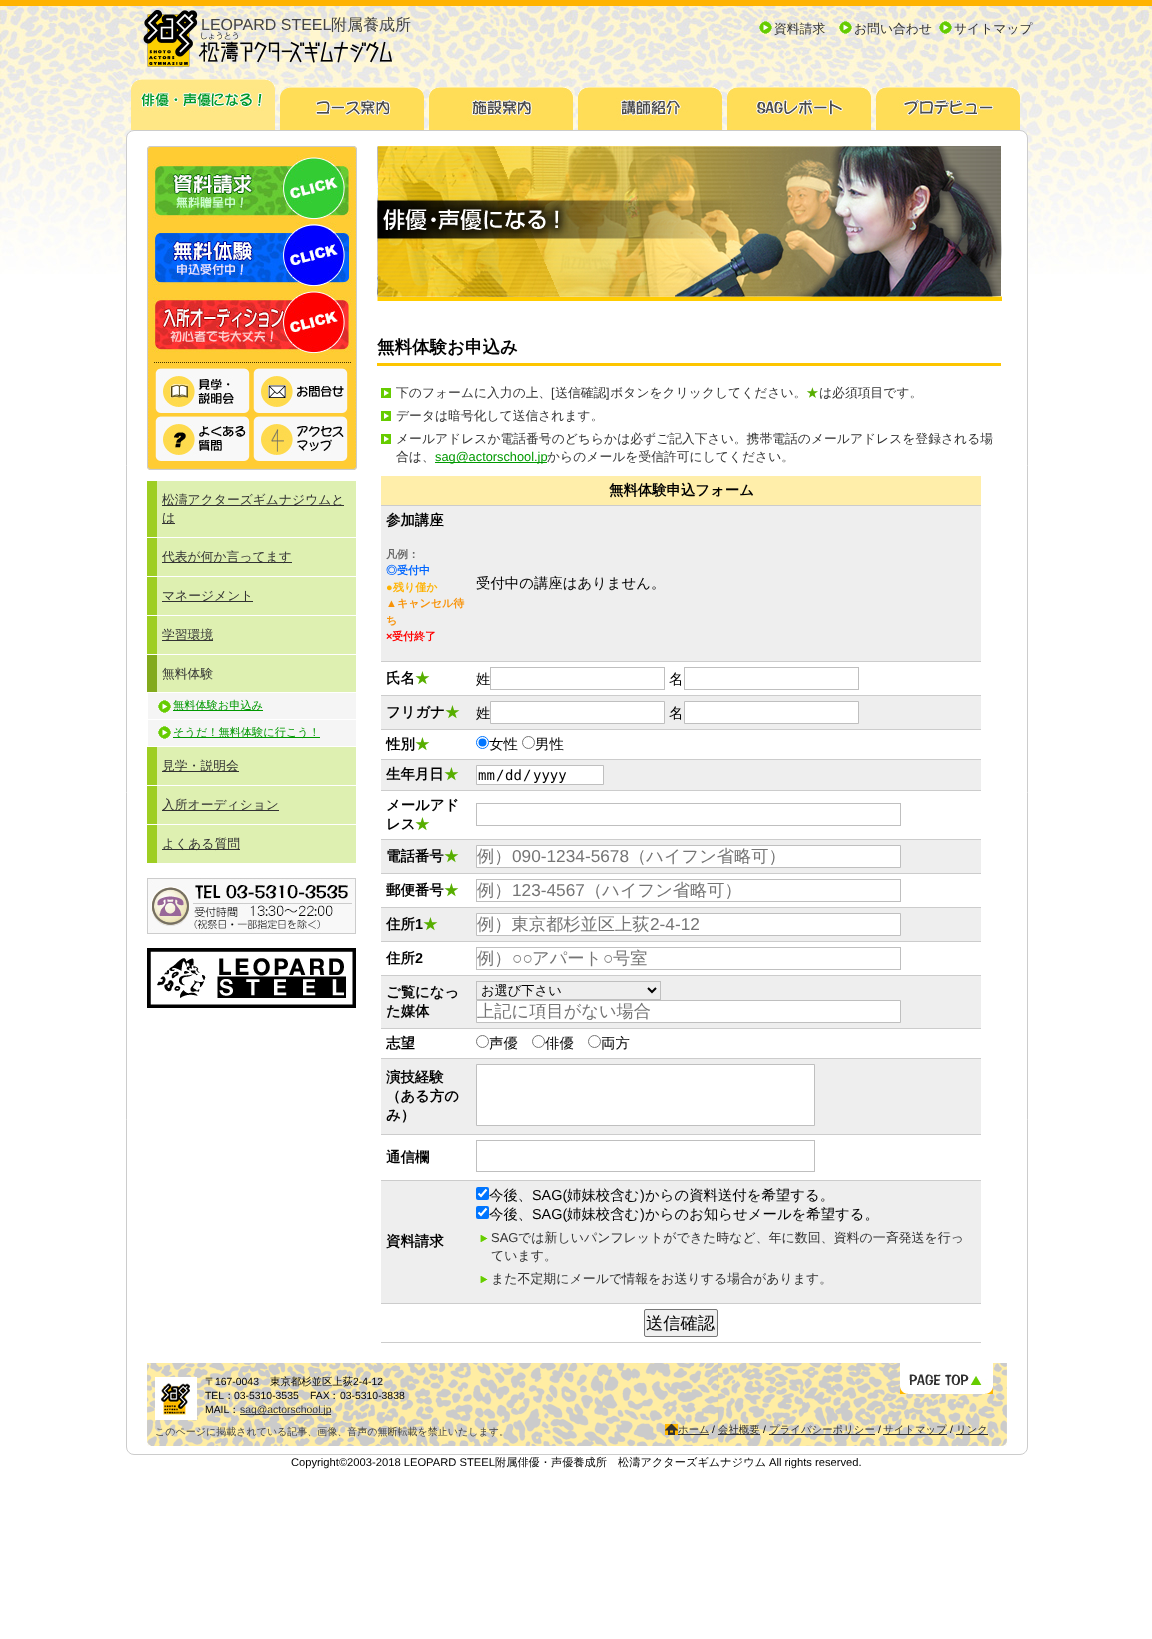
(async () => {
    const canvas = document.querySelector("canvas");
    canvas.width = 1152;
    canvas.height = 1639;
    const context = canvas.getContext("2d");
    context.miterLimit = 4;
    context.fontKerning = "normal";
    function write(s, x, y, font, color) {
        context.font = font;
        context.fillStyle = color;
        context.fillText(s, x, y);
    }
    function block(x, y, w, h, color) {
        context.fillStyle = color;
        context.fillRect(x, y, w, h);
    }
    function card(x, y, w, h, r, color) {
        context.fillStyle = color;
        context.beginPath();
        context.roundRect(x, y, w, h, r);
        context.fill();
    }
    async function photo(src, x, y, w, h) {
        const img = new Image();
        img.src = src;
        await img.decode();
        context.drawImage(img, x, y, w, h);
    }

    block(0, 0, 1152, 1639, "rgb(255, 255, 255)");
    await photo("media/1.png", 0, 6, 1152, 268);
    block(0, 0, 1152, 6, "rgb(255, 179, 0)");
    await photo("media/2.png", 143, 10, 249, 57);
    write("LEOPARD STEEL", 201, 30, "16px Liberation Sans", "rgb(68, 68, 68)");
    write("附属養成所", 331, 30, "500 16px WenQuanYi Zen Hei", "rgb(68, 68, 68)");
    await photo("media/3.png", 759, 21, 13, 13);
    write("資料請求", 774, 33, "500 12.8px WenQuanYi Zen Hei", "rgb(51, 51, 51)");
    await photo("media/4.png", 839, 21, 13, 13);
    write("お問い合わせ", 854, 33, "500 12.8px WenQuanYi Zen Hei", "rgb(51, 51, 51)");
    await photo("media/5.png", 939, 21, 13, 13);
    write("サイトマップ", 954, 33, "500 12.8px WenQuanYi Zen Hei", "rgb(51, 51, 51)");
    await photo("media/6.png", 131, 79, 144, 51);
    await photo("media/7.png", 280, 87, 144, 43);
    await photo("media/8.png", 429, 87, 144, 43);
    await photo("media/9.png", 578, 87, 144, 43);
    await photo("media/10.png", 727, 87, 144, 43);
    await photo("media/11.png", 876, 87, 144, 43);
    context.fillStyle = "rgb(255, 255, 255)";
    context.beginPath();
    context.roundRect(126.5, 130.5, 901, 1324, 7.5);
    context.fill();
    context.strokeStyle = "rgb(204, 204, 204)";
    context.stroke();
    await photo("media/12.png", 147, 146, 210, 3);
    await photo("media/13.png", 147, 467, 210, 3);
    await photo("media/14.png", 147, 149, 210, 207);
    await photo("media/15.png", 152, 155, 200, 67);
    await photo("media/16.png", 152, 222, 200, 67);
    await photo("media/17.png", 152, 289, 200, 67);
    await photo("media/18.png", 147, 356, 210, 111);
    context.beginPath();
    context.moveTo(154, 362.5);
    context.lineTo(352, 362.5);
    context.strokeStyle = "rgb(70, 56, 0)";
    context.setLineDash([1, 1]);
    context.stroke();
    await photo("media/19.png", 155, 368, 95, 46);
    await photo("media/20.png", 253, 368, 95, 46);
    await photo("media/21.png", 155, 416, 95, 45);
    await photo("media/22.png", 253, 416, 95, 45);
    block(157, 481, 199, 56, "rgb(222, 240, 177)");
    block(147, 481, 10, 56, "rgb(158, 206, 34)");
    block(162, 505, 182, 1, "rgb(51, 51, 51)");
    write("松濤アクターズギムナジウムと", 162, 504, "500 12.8px WenQuanYi Zen Hei", "rgb(51, 51, 51)");
    block(162, 523, 13, 1, "rgb(51, 51, 51)");
    write("は", 162, 522, "500 12.8px WenQuanYi Zen Hei", "rgb(51, 51, 51)");
    block(157, 538, 199, 38, "rgb(222, 240, 177)");
    block(147, 538, 10, 38, "rgb(158, 206, 34)");
    block(162, 562, 130, 1, "rgb(51, 51, 51)");
    write("代表が何か言ってます", 162, 561, "500 12.8px WenQuanYi Zen Hei", "rgb(51, 51, 51)");
    block(157, 577, 199, 38, "rgb(222, 240, 177)");
    block(147, 577, 10, 38, "rgb(158, 206, 34)");
    block(162, 601, 91, 1, "rgb(51, 51, 51)");
    write("マネージメント", 162, 600, "500 12.8px WenQuanYi Zen Hei", "rgb(51, 51, 51)");
    block(157, 616, 199, 38, "rgb(222, 240, 177)");
    block(147, 616, 10, 38, "rgb(158, 206, 34)");
    block(162, 640, 51, 1, "rgb(51, 51, 51)");
    write("学習環境", 162, 639, "500 12.8px WenQuanYi Zen Hei", "rgb(51, 51, 51)");
    block(157, 655, 199, 37, "rgb(222, 240, 177)");
    block(147, 655, 10, 37, "rgb(131, 170, 28)");
    write("無料体験", 162, 678, "500 12.8px WenQuanYi Zen Hei", "rgb(51, 51, 51)");
    block(148, 693, 208, 26, "rgb(245, 245, 245)");
    await photo("media/23.png", 158, 700, 13, 13);
    block(173, 710, 90, 1, "rgb(0, 153, 0)");
    write("無料体験お申込み", 173, 709, "500 11.2px WenQuanYi Zen Hei", "rgb(0, 153, 0)");
    block(148, 720, 208, 26, "rgb(245, 245, 245)");
    await photo("media/23.png", 158, 726, 13, 13);
    block(173, 737, 147, 1, "rgb(0, 153, 0)");
    write("そうだ！無料体験に行こう！", 173, 736, "500 11.2px WenQuanYi Zen Hei", "rgb(0, 153, 0)");
    block(157, 747, 199, 38, "rgb(222, 240, 177)");
    block(147, 747, 10, 38, "rgb(158, 206, 34)");
    block(162, 771, 77, 1, "rgb(51, 51, 51)");
    write("見学・説明会", 162, 770, "500 12.8px WenQuanYi Zen Hei", "rgb(51, 51, 51)");
    block(157, 786, 199, 38, "rgb(222, 240, 177)");
    block(147, 786, 10, 38, "rgb(158, 206, 34)");
    block(162, 810, 117, 1, "rgb(51, 51, 51)");
    write("入所オーディション", 162, 809, "500 12.8px WenQuanYi Zen Hei", "rgb(51, 51, 51)");
    block(157, 825, 199, 38, "rgb(222, 240, 177)");
    block(147, 825, 10, 38, "rgb(158, 206, 34)");
    block(162, 849, 78, 1, "rgb(51, 51, 51)");
    write("よくある質問", 162, 848, "500 12.8px WenQuanYi Zen Hei", "rgb(51, 51, 51)");
    await photo("media/24.png", 147, 878, 209, 56);
    await photo("media/25.png", 147, 948, 209, 60);
    await photo("media/26.png", 377, 146, 625, 155);
    block(377, 363, 624, 3, "rgb(253, 197, 0)");
    write("無料体験お申込み", 377, 353, "bold 17.5px WenQuanYi Zen Hei", "rgb(0, 0, 0)");
    await photo("media/27.png", 381, 388, 10, 10);
    write("下のフォームに入力の上、 送信確認 ボタンをクリックしてください。", 396, 397, "500 12.8px WenQuanYi Zen Hei", "rgb(51, 51, 51)");
    write("は必須項目です。", 819, 397, "500 12.8px WenQuanYi Zen Hei", "rgb(51, 51, 51)");
    write("[", 551, 397, "12.8px Liberation Sans", "rgb(51, 51, 51)");
    write("]", 606, 397, "12.8px Liberation Sans", "rgb(51, 51, 51)");
    write("★", 806, 397, "500 12.8px WenQuanYi Zen Hei", "rgb(87, 174, 0)");
    await photo("media/27.png", 381, 411, 10, 10);
    write("データは暗号化して送信されます。", 396, 420, "500 12.8px WenQuanYi Zen Hei", "rgb(51, 51, 51)");
    await photo("media/27.png", 381, 434, 10, 10);
    write("メールアドレスか電話番号のどちらかは必ずご記入下さい。携帯電話のメールアドレスを登録される場", 396, 443, "500 12.8px WenQuanYi Zen Hei", "rgb(51, 51, 51)");
    write("合は、", 396, 461, "500 12.8px WenQuanYi Zen Hei", "rgb(51, 51, 51)");
    block(435, 462, 112, 1, "rgb(0, 153, 0)");
    write("sag@actorschool.jp", 435, 461, "12.8px Liberation Sans", "rgb(0, 153, 0)");
    write("からのメールを受信許可にしてください。", 547, 461, "500 12.8px WenQuanYi Zen Hei", "rgb(51, 51, 51)");
    block(381, 476, 600, 29, "rgb(255, 238, 170)");
    block(381, 505, 600, 1, "rgb(204, 204, 204)");
    write("無料体験申込フォーム", 609, 495, "bold 14.4px WenQuanYi Zen Hei", "rgb(0, 0, 0)");
    block(381, 506, 600, 155, "rgb(238, 238, 238)");
    block(381, 661, 600, 1, "rgb(204, 204, 204)");
    write("参加講座", 386, 525, "bold 14.4px WenQuanYi Zen Hei", "rgb(0, 0, 0)");
    write("凡例：", 386, 558, "bold 11px WenQuanYi Zen Hei", "rgb(102, 102, 102)");
    write("◎受付中", 386, 574, "bold 11px WenQuanYi Zen Hei", "rgb(0, 102, 255)");
    write("●", 386, 591, "bold 11px Liberation Sans", "rgb(255, 178, 0)");
    write("残り僅か", 393, 591, "bold 11px WenQuanYi Zen Hei", "rgb(255, 178, 0)");
    write("▲", 386, 607, "bold 11px Liberation Sans", "rgb(248, 146, 7)");
    write("キャンセル待", 397, 607, "bold 11px WenQuanYi Zen Hei", "rgb(248, 146, 7)");
    write("ち", 386, 624, "bold 11px WenQuanYi Zen Hei", "rgb(248, 146, 7)");
    write("×", 386, 640, "bold 11px Liberation Sans", "rgb(255, 0, 0)");
    write("受付終了", 392, 640, "bold 11px WenQuanYi Zen Hei", "rgb(255, 0, 0)");
    write("受付中の講座はありません。", 476, 588, "500 14.4px WenQuanYi Zen Hei", "rgb(0, 0, 0)");
    block(381, 695, 600, 1, "rgb(204, 204, 204)");
    write("氏名", 386, 683, "bold 14.4px WenQuanYi Zen Hei", "rgb(0, 0, 0)");
    write("★", 415, 683, "bold 14.4px WenQuanYi Zen Hei", "rgb(87, 174, 0)");
    write("姓", 476, 684, "500 14.4px WenQuanYi Zen Hei", "rgb(0, 0, 0)");
    context.strokeStyle = "rgb(191, 191, 191)";
    context.setLineDash([]);
    context.strokeRect(490.5, 667.5, 174, 22);
    write("名", 669, 684, "500 14.4px WenQuanYi Zen Hei", "rgb(0, 0, 0)");
    context.strokeRect(684.5, 667.5, 174, 22);
    block(381, 696, 600, 33, "rgb(238, 238, 238)");
    block(381, 729, 600, 1, "rgb(204, 204, 204)");
    write("フリガナ", 386, 717, "bold 14.4px WenQuanYi Zen Hei", "rgb(0, 0, 0)");
    write("★", 445, 717, "bold 14.4px WenQuanYi Zen Hei", "rgb(87, 174, 0)");
    write("姓", 476, 718, "500 14.4px WenQuanYi Zen Hei", "rgb(0, 0, 0)");
    context.fillStyle = "rgb(255, 255, 255)";
    context.beginPath();
    context.rect(490.5, 701.5, 174, 22);
    context.fill();
    context.stroke();
    write("名", 669, 718, "500 14.4px WenQuanYi Zen Hei", "rgb(0, 0, 0)");
    context.fillStyle = "rgb(255, 255, 255)";
    context.beginPath();
    context.rect(684.5, 701.5, 174, 22);
    context.fill();
    context.stroke();
    block(381, 759, 600, 1, "rgb(204, 204, 204)");
    write("性別", 386, 749, "bold 14.4px WenQuanYi Zen Hei", "rgb(0, 0, 0)");
    write("★", 415, 749, "bold 14.4px WenQuanYi Zen Hei", "rgb(87, 174, 0)");
    context.beginPath();
    context.arc(482.5, 742.5, 6, 0, Math.PI * 2);
    context.strokeStyle = "rgb(0, 117, 255)";
    context.stroke();
    context.fillStyle = "rgb(0, 117, 255)";
    context.beginPath();
    context.arc(482.5, 742.5, 4, 0, Math.PI * 2);
    context.fill();
    write("女性", 489, 749, "500 14.4px WenQuanYi Zen Hei", "rgb(0, 0, 0)");
    context.beginPath();
    context.arc(528.5, 742.5, 6, 0, Math.PI * 2);
    context.strokeStyle = "rgb(118, 118, 118)";
    context.stroke();
    write("男性", 535, 749, "500 14.4px WenQuanYi Zen Hei", "rgb(0, 0, 0)");
    block(381, 760, 600, 30, "rgb(238, 238, 238)");
    block(381, 790, 600, 1, "rgb(204, 204, 204)");
    write("生年月日", 386, 779, "bold 14.4px WenQuanYi Zen Hei", "rgb(0, 0, 0)");
    write("★", 444, 779, "bold 14.4px WenQuanYi Zen Hei", "rgb(87, 174, 0)");
    context.fillStyle = "rgb(255, 255, 255)";
    context.beginPath();
    context.rect(476.5, 765.5, 127, 19);
    context.fill();
    context.strokeStyle = "rgb(191, 191, 191)";
    context.stroke();
    write("mm", 478, 780, "14px DejaVu Sans Mono", "rgb(0, 0, 0)");
    write("/", 496, 780, "14px DejaVu Sans Mono", "rgb(0, 0, 0)");
    write("dd", 505, 780, "14px DejaVu Sans Mono", "rgb(0, 0, 0)");
    write("/", 523, 780, "14px DejaVu Sans Mono", "rgb(0, 0, 0)");
    write("yyyy", 533, 780, "14px DejaVu Sans Mono", "rgb(0, 0, 0)");
    block(381, 839, 600, 1, "rgb(204, 204, 204)");
    write("メールアド", 386, 810, "bold 14.4px WenQuanYi Zen Hei", "rgb(0, 0, 0)");
    write("レス", 386, 829, "bold 14.4px WenQuanYi Zen Hei", "rgb(0, 0, 0)");
    write("★", 415, 829, "bold 14.4px WenQuanYi Zen Hei", "rgb(87, 174, 0)");
    context.strokeRect(476.5, 803.5, 424, 22);
    block(381, 840, 600, 33, "rgb(238, 238, 238)");
    block(381, 873, 600, 1, "rgb(204, 204, 204)");
    write("電話番号", 386, 861, "bold 14.4px WenQuanYi Zen Hei", "rgb(0, 0, 0)");
    write("★", 444, 861, "bold 14.4px WenQuanYi Zen Hei", "rgb(87, 174, 0)");
    context.fillStyle = "rgb(255, 255, 255)";
    context.beginPath();
    context.rect(476.5, 845.5, 424, 22);
    context.fill();
    context.stroke();
    write("例）", 477, 862, "500 17.25px WenQuanYi Zen Hei", "rgb(117, 117, 117)");
    write("090-1234-5678", 512, 862, "17.25px Liberation Sans", "rgb(117, 117, 117)");
    write("（ハイフン省略可）", 629, 862, "500 17.25px WenQuanYi Zen Hei", "rgb(117, 117, 117)");
    block(381, 907, 600, 1, "rgb(204, 204, 204)");
    write("郵便番号", 386, 895, "bold 14.4px WenQuanYi Zen Hei", "rgb(0, 0, 0)");
    write("★", 444, 895, "bold 14.4px WenQuanYi Zen Hei", "rgb(87, 174, 0)");
    context.strokeRect(476.5, 879.5, 424, 22);
    write("例）", 477, 896, "500 17.25px WenQuanYi Zen Hei", "rgb(117, 117, 117)");
    write("123-4567", 512, 896, "17.25px Liberation Sans", "rgb(117, 117, 117)");
    write("（ハイフン省略可）", 585, 896, "500 17.25px WenQuanYi Zen Hei", "rgb(117, 117, 117)");
    block(381, 908, 600, 33, "rgb(238, 238, 238)");
    block(381, 941, 600, 1, "rgb(204, 204, 204)");
    write("住所", 386, 929, "bold 14.4px WenQuanYi Zen Hei", "rgb(0, 0, 0)");
    write("1", 415, 929, "bold 14.4px Liberation Sans", "rgb(0, 0, 0)");
    write("★", 423, 929, "bold 14.4px WenQuanYi Zen Hei", "rgb(87, 174, 0)");
    context.fillStyle = "rgb(255, 255, 255)";
    context.beginPath();
    context.rect(476.5, 913.5, 424, 22);
    context.fill();
    context.stroke();
    write("例）東京都杉並区上荻", 477, 930, "500 17.25px WenQuanYi Zen Hei", "rgb(117, 117, 117)");
    write("2-4-12", 650, 930, "17.25px Liberation Sans", "rgb(117, 117, 117)");
    block(381, 975, 600, 1, "rgb(204, 204, 204)");
    write("住所", 386, 963, "bold 14.4px WenQuanYi Zen Hei", "rgb(0, 0, 0)");
    write("2", 415, 963, "bold 14.4px Liberation Sans", "rgb(0, 0, 0)");
    context.strokeRect(476.5, 947.5, 424, 22);
    write("例）", 477, 964, "500 17.25px WenQuanYi Zen Hei", "rgb(117, 117, 117)");
    write("○○", 512, 964, "17.25px Liberation Sans", "rgb(117, 117, 117)");
    write("アパート", 532, 964, "500 17.25px WenQuanYi Zen Hei", "rgb(117, 117, 117)");
    write("○", 603, 964, "17.25px Liberation Sans", "rgb(117, 117, 117)");
    write("号室", 613, 964, "500 17.25px WenQuanYi Zen Hei", "rgb(117, 117, 117)");
    block(381, 976, 600, 52, "rgb(238, 238, 238)");
    block(381, 1028, 600, 1, "rgb(204, 204, 204)");
    write("ご覧になっ", 386, 997, "bold 14.4px WenQuanYi Zen Hei", "rgb(0, 0, 0)");
    write("た媒体", 386, 1016, "bold 14.4px WenQuanYi Zen Hei", "rgb(0, 0, 0)");
    context.strokeRect(476.5, 981.5, 184, 18);
    context.beginPath();
    context.moveTo(648, 988);
    context.lineTo(652, 992);
    context.lineTo(656, 988);
    context.strokeStyle = "rgb(0, 0, 0)";
    context.lineWidth = 2;
    context.stroke();
    write("お選び下さい", 481, 995, "500 13.25px WenQuanYi Zen Hei", "rgb(0, 0, 0)");
    context.fillStyle = "rgb(255, 255, 255)";
    context.beginPath();
    context.rect(476.5, 1000.5, 424, 22);
    context.fill();
    context.strokeStyle = "rgb(191, 191, 191)";
    context.lineWidth = 1;
    context.stroke();
    write("上記に項目がない場合", 477, 1017, "500 17.25px WenQuanYi Zen Hei", "rgb(117, 117, 117)");
    block(381, 1058, 600, 1, "rgb(204, 204, 204)");
    write("志望", 386, 1048, "bold 14.4px WenQuanYi Zen Hei", "rgb(0, 0, 0)");
    context.beginPath();
    context.arc(482.5, 1041.5, 6, 0, Math.PI * 2);
    context.strokeStyle = "rgb(118, 118, 118)";
    context.stroke();
    write("声優", 489, 1048, "500 14.4px WenQuanYi Zen Hei", "rgb(0, 0, 0)");
    context.beginPath();
    context.arc(538.5, 1041.5, 6, 0, Math.PI * 2);
    context.stroke();
    write("俳優", 545, 1048, "500 14.4px WenQuanYi Zen Hei", "rgb(0, 0, 0)");
    context.beginPath();
    context.arc(594.5, 1041.5, 6, 0, Math.PI * 2);
    context.stroke();
    write("両方", 601, 1048, "500 14.4px WenQuanYi Zen Hei", "rgb(0, 0, 0)");
    block(381, 1059, 600, 75, "rgb(238, 238, 238)");
    block(381, 1134, 600, 1, "rgb(204, 204, 204)");
    write("演技経験", 386, 1082, "bold 14.4px WenQuanYi Zen Hei", "rgb(0, 0, 0)");
    write("（ある方の", 386, 1101, "bold 14.4px WenQuanYi Zen Hei", "rgb(0, 0, 0)");
    write("み）", 386, 1120, "bold 14.4px WenQuanYi Zen Hei", "rgb(0, 0, 0)");
    context.fillStyle = "rgb(255, 255, 255)";
    context.beginPath();
    context.rect(476.5, 1064.5, 338, 61);
    context.fill();
    context.strokeStyle = "rgb(191, 191, 191)";
    context.stroke();
    block(381, 1180, 600, 1, "rgb(204, 204, 204)");
    write("通信欄", 386, 1162, "bold 14.4px WenQuanYi Zen Hei", "rgb(0, 0, 0)");
    context.strokeRect(476.5, 1140.5, 338, 31);
    block(381, 1181, 600, 122, "rgb(238, 238, 238)");
    block(381, 1303, 600, 1, "rgb(204, 204, 204)");
    write("資料請求", 386, 1246, "bold 14.4px WenQuanYi Zen Hei", "rgb(0, 0, 0)");
    card(476, 1187, 13, 13, 2, "rgb(0, 117, 255)");
    context.beginPath();
    context.moveTo(478.5, 1193.5);
    context.lineTo(481, 1196);
    context.lineTo(486.5, 1189.5);
    context.strokeStyle = "rgb(255, 255, 255)";
    context.lineWidth = 2.1;
    context.stroke();
    write("今後、", 489, 1200, "500 14.4px WenQuanYi Zen Hei", "rgb(0, 0, 0)");
    write("SAG(", 532, 1200, "14.4px Liberation Sans", "rgb(0, 0, 0)");
    write("姉妹校含む", 567, 1200, "500 14.4px WenQuanYi Zen Hei", "rgb(0, 0, 0)");
    write(")", 640, 1200, "14.4px Liberation Sans", "rgb(0, 0, 0)");
    write("からの資料送付を希望する。", 645, 1200, "500 14.4px WenQuanYi Zen Hei", "rgb(0, 0, 0)");
    card(476, 1206, 13, 13, 2, "rgb(0, 117, 255)");
    context.beginPath();
    context.moveTo(478.5, 1212.5);
    context.lineTo(481, 1215);
    context.lineTo(486.5, 1208.5);
    context.stroke();
    write("今後、", 489, 1219, "500 14.4px WenQuanYi Zen Hei", "rgb(0, 0, 0)");
    write("SAG(", 532, 1219, "14.4px Liberation Sans", "rgb(0, 0, 0)");
    write("姉妹校含む", 567, 1219, "500 14.4px WenQuanYi Zen Hei", "rgb(0, 0, 0)");
    write(")", 640, 1219, "14.4px Liberation Sans", "rgb(0, 0, 0)");
    write("からのお知らせメールを希望する。", 645, 1219, "500 14.4px WenQuanYi Zen Hei", "rgb(0, 0, 0)");
    await photo("media/28.png", 480, 1235, 8, 7);
    write("SAG", 491, 1242, "12.95px Liberation Sans", "rgb(51, 51, 51)");
    write("では新しいパンフレットができた時など、年に数回、資料の一斉発送を行っ", 518, 1242, "500 12.95px WenQuanYi Zen Hei", "rgb(51, 51, 51)");
    write("ています。", 491, 1260, "500 12.95px WenQuanYi Zen Hei", "rgb(51, 51, 51)");
    await photo("media/28.png", 480, 1276, 8, 7);
    write("また不定期にメールで情報をお送りする場合があります。", 491, 1283, "500 12.95px WenQuanYi Zen Hei", "rgb(51, 51, 51)");
    block(381, 1342, 600, 1, "rgb(204, 204, 204)");
    context.fillStyle = "rgb(239, 239, 239)";
    context.beginPath();
    context.roundRect(644.5, 1309.5, 73, 27, 1.5);
    context.fill();
    context.strokeStyle = "rgb(118, 118, 118)";
    context.lineWidth = 1;
    context.stroke();
    write("送信確認", 646, 1329, "500 17.25px WenQuanYi Zen Hei", "rgb(0, 0, 0)");
    await photo("media/29.png", 147, 1363, 860, 83);
    await photo("media/30.png", 155, 1377, 42, 43);
    write("〒", 205, 1385, "500 10.4px WenQuanYi Zen Hei", "rgb(0, 0, 0)");
    write("167-0043", 215, 1385, "10.4px Liberation Sans", "rgb(0, 0, 0)");
    write("東京都杉並区上荻", 270, 1385, "500 10.4px WenQuanYi Zen Hei", "rgb(0, 0, 0)");
    write("2-4-12", 353, 1385, "10.4px Liberation Sans", "rgb(0, 0, 0)");
    write("TEL", 205, 1399, "10.4px Liberation Sans", "rgb(0, 0, 0)");
    write("：", 224, 1399, "500 10.4px WenQuanYi Zen Hei", "rgb(0, 0, 0)");
    write("03-5310-3535", 234, 1399, "10.4px Liberation Sans", "rgb(0, 0, 0)");
    write("FAX", 310, 1399, "10.4px Liberation Sans", "rgb(0, 0, 0)");
    write("：", 329, 1399, "500 10.4px WenQuanYi Zen Hei", "rgb(0, 0, 0)");
    write("03-5310-3838", 340, 1399, "10.4px Liberation Sans", "rgb(0, 0, 0)");
    write("MAIL", 205, 1413, "10.4px Liberation Sans", "rgb(0, 0, 0)");
    write("：", 229, 1413, "500 10.4px WenQuanYi Zen Hei", "rgb(0, 0, 0)");
    block(240, 1414, 91, 1, "rgb(51, 51, 51)");
    write("sag@actorschool.jp", 240, 1413, "10.4px Liberation Sans", "rgb(51, 51, 51)");
    await photo("media/31.png", 900, 1363, 93, 31);
    write("このページに掲載されている記事、画像、音声の無断転載を禁止いたします。", 155, 1435, "500 10px WenQuanYi Zen Hei", "rgb(68, 68, 68)");
    await photo("media/32.png", 665, 1424, 13, 11);
    block(678, 1434, 31, 1, "rgb(51, 51, 51)");
    write("ホーム", 678, 1433, "500 10.4px WenQuanYi Zen Hei", "rgb(51, 51, 51)");
    write("/", 712, 1433, "10.4px Liberation Sans", "rgb(0, 0, 0)");
    block(718, 1434, 42, 1, "rgb(51, 51, 51)");
    write("会社概要", 718, 1433, "500 10.4px WenQuanYi Zen Hei", "rgb(51, 51, 51)");
    write("/", 763, 1433, "10.4px Liberation Sans", "rgb(0, 0, 0)");
    block(769, 1434, 106, 1, "rgb(51, 51, 51)");
    write("プライバシーポリシー", 769, 1433, "500 10.4px WenQuanYi Zen Hei", "rgb(51, 51, 51)");
    write("/", 878, 1433, "10.4px Liberation Sans", "rgb(0, 0, 0)");
    block(883, 1434, 64, 1, "rgb(51, 51, 51)");
    write("サイトマップ", 883, 1433, "500 10.4px WenQuanYi Zen Hei", "rgb(51, 51, 51)");
    write("/", 950, 1433, "10.4px Liberation Sans", "rgb(0, 0, 0)");
    block(956, 1434, 32, 1, "rgb(51, 51, 51)");
    write("リンク", 956, 1433, "500 10.4px WenQuanYi Zen Hei", "rgb(51, 51, 51)");
    write("Copyright©2003-2018 LEOPARD STEEL", 291, 1466, "11.2px Liberation Sans", "rgb(0, 0, 0)");
    write("附属俳優・声優養成所　松濤アクターズギムナジウム", 495, 1466, "500 11.2px WenQuanYi Zen Hei", "rgb(0, 0, 0)");
    write("All rights reserved.", 769, 1466, "11.2px Liberation Sans", "rgb(0, 0, 0)");
})();
